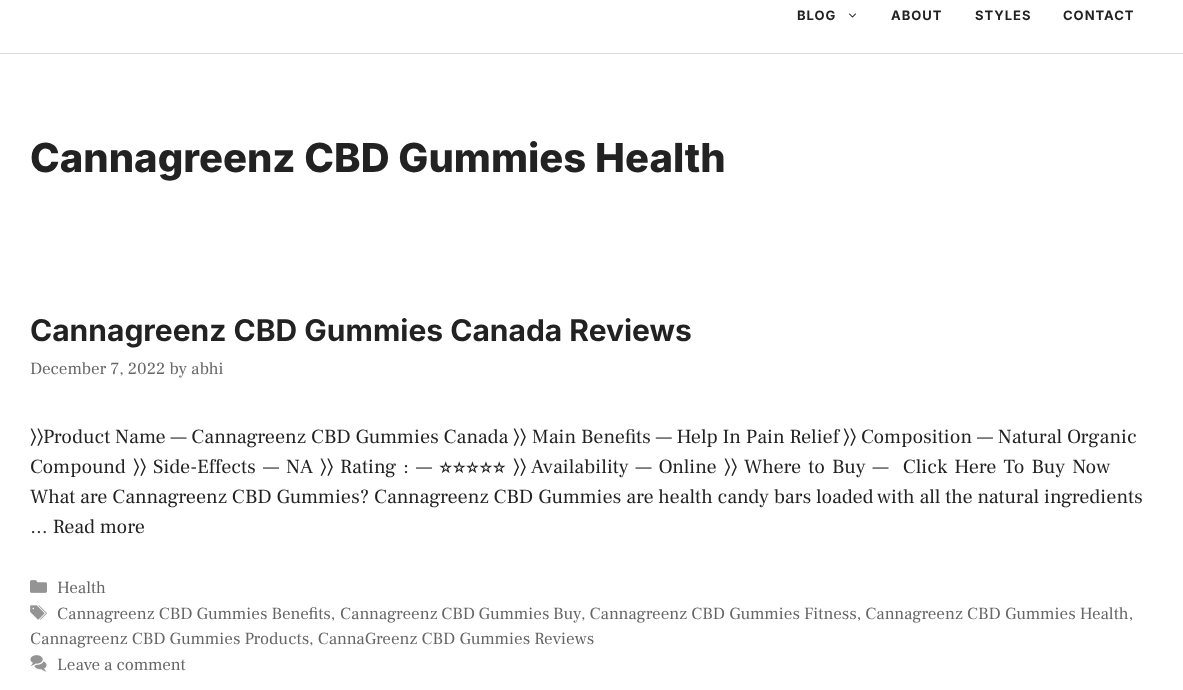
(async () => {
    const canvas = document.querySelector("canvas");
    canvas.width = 1183;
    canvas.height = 690;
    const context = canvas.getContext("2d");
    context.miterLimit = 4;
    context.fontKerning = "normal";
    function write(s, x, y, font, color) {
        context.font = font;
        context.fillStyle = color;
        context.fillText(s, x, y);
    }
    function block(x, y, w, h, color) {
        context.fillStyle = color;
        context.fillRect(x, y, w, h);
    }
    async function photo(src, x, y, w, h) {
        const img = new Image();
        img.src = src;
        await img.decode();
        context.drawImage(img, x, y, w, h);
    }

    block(0, 0, 1183, 690, "rgb(255, 255, 255)");
    block(0, 53, 1183, 1, "rgb(221, 221, 221)");
    context.letterSpacing = "1px";
    write("BLOG", 797, 20, "bold 13px Inter", "rgb(34, 34, 34)");
    await photo("media/1.png", 849, 13, 7, 5);
    write("ABOUT", 891, 20, "bold 13px Inter", "rgb(34, 34, 34)");
    write("STYLES", 975, 20, "bold 13px Inter", "rgb(34, 34, 34)");
    write("CONTACT", 1063, 20, "bold 13px Inter", "rgb(34, 34, 34)");
    context.letterSpacing = "0px";
    write("Cannagreenz CBD Gummies Health", 30, 172, "800 40px Inter", "rgb(34, 34, 34)");
    write("Cannagreenz CBD Gummies Canada Reviews", 30, 341, "bold 30px Inter", "rgb(34, 34, 34)");
    write("December 7, 2022 by abhi", 30, 374, "17px Frank Ruhl Libre", "rgb(102, 102, 102)");
    write("〉〉", 30, 443, "20px FreeSans", "rgb(34, 34, 34)");
    write("Product Name — Cannagreenz CBD Gummies Canada", 43, 443, "20px Frank Ruhl Libre", "rgb(34, 34, 34)");
    write("〉〉", 513, 443, "20px FreeSans", "rgb(34, 34, 34)");
    write("Main Benefits — Help In Pain Relief", 532, 443, "20px Frank Ruhl Libre", "rgb(34, 34, 34)");
    write("〉〉", 843, 443, "20px FreeSans", "rgb(34, 34, 34)");
    write("Composition — Natural Organic", 861, 443, "20px Frank Ruhl Libre", "rgb(34, 34, 34)");
    write("Compound", 30, 473, "20px Frank Ruhl Libre", "rgb(34, 34, 34)");
    write("〉〉", 133, 473, "20px FreeSans", "rgb(34, 34, 34)");
    context.wordSpacing = "2.25px";
    write("Side-Effects — NA", 153, 473, "20px Frank Ruhl Libre", "rgb(34, 34, 34)");
    context.wordSpacing = "0px";
    write("〉〉", 320, 473, "20px FreeSans", "rgb(34, 34, 34)");
    context.wordSpacing = "2.25px";
    write("Rating : —", 340, 473, "20px Frank Ruhl Libre", "rgb(34, 34, 34)");
    context.wordSpacing = "0px";
    write("⭐⭐⭐⭐⭐", 439, 473, "20px FreeSans", "rgb(34, 34, 34)");
    write("〉〉", 513, 473, "20px FreeSans", "rgb(34, 34, 34)");
    context.wordSpacing = "2.25px";
    write("Availability — Online", 531, 473, "20px Frank Ruhl Libre", "rgb(34, 34, 34)");
    context.wordSpacing = "0px";
    write("〉〉", 724, 473, "20px FreeSans", "rgb(34, 34, 34)");
    context.wordSpacing = "2.25px";
    write("Where to Buy —  Click Here To Buy Now", 744, 473, "20px Frank Ruhl Libre", "rgb(34, 34, 34)");
    context.wordSpacing = "0px";
    write("What are Cannagreenz CBD Gummies? Cannagreenz CBD Gummies are health candy bars loaded with all the natural ingredients", 30, 503, "20px Frank Ruhl Libre", "rgb(34, 34, 34)");
    write("… Read more", 30, 533, "20px Frank Ruhl Libre", "rgb(34, 34, 34)");
    await photo("media/2.png", 30, 580, 17, 13);
    write("Health", 57, 593, "17px Frank Ruhl Libre", "rgb(102, 102, 102)");
    await photo("media/3.png", 30, 605, 17, 15);
    write("Cannagreenz CBD Gummies Benefits,", 57, 619, "17px Frank Ruhl Libre", "rgb(102, 102, 102)");
    context.wordSpacing = "-0.5px";
    write("Cannagreenz CBD Gummies Buy", 340, 619, "17px Frank Ruhl Libre", "rgb(102, 102, 102)");
    context.wordSpacing = "0px";
    write(", Cannagreenz CBD Gummies Fitness, Cannagreenz CBD Gummies Health,", 581, 619, "17px Frank Ruhl Libre", "rgb(102, 102, 102)");
    write("Cannagreenz CBD Gummies Products, CannaGreenz CBD Gummies Reviews", 30, 644, "17px Frank Ruhl Libre", "rgb(102, 102, 102)");
    await photo("media/4.png", 30, 655, 17, 17);
    write("Leave a comment", 57, 670, "17px Frank Ruhl Libre", "rgb(102, 102, 102)");
})();
